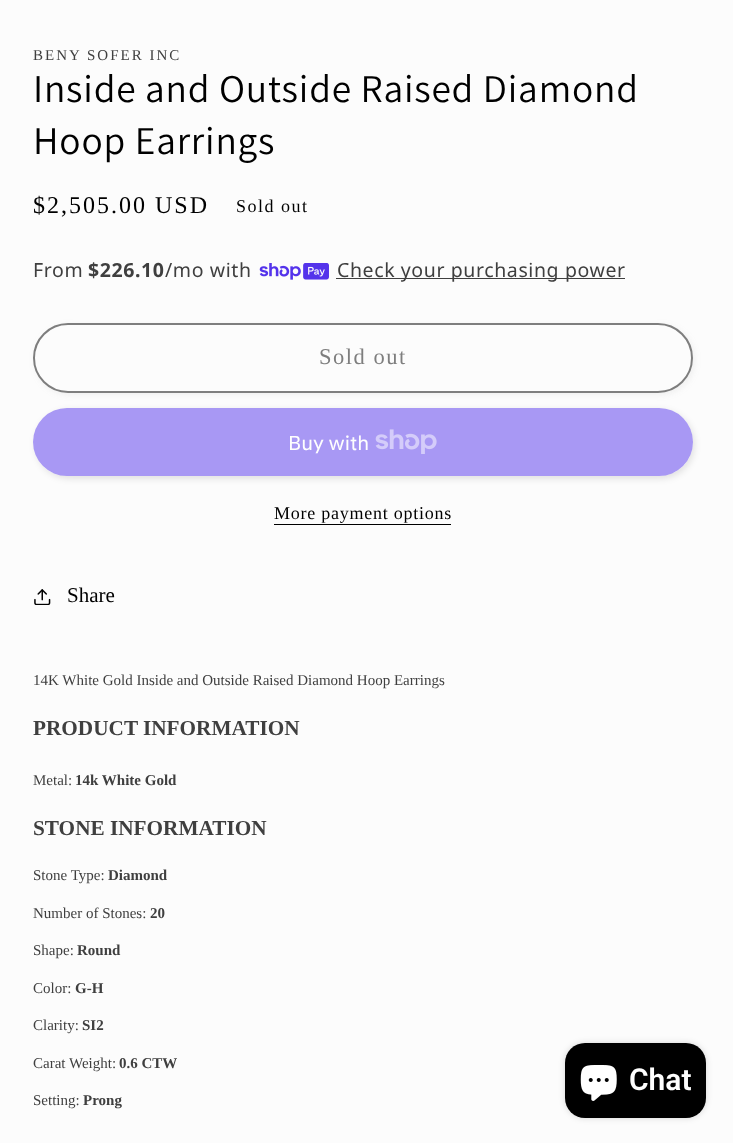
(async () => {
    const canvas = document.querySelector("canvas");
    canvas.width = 733;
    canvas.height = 1143;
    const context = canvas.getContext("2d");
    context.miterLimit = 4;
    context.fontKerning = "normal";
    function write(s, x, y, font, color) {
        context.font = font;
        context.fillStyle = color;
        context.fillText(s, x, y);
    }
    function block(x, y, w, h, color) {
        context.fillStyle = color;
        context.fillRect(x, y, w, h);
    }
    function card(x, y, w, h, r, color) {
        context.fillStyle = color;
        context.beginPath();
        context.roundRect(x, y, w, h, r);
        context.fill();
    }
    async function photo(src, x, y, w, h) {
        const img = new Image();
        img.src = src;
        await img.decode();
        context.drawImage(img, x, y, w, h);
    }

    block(0, 0, 733, 1143, "rgb(252, 252, 252)");
    context.letterSpacing = "2px";
    write("BENY SOFER INC", 33, 60, "15px Liberation Serif", "rgb(63, 63, 63)");
    context.letterSpacing = "0.8px";
    write("Inside and Outside Raised Diamond", 33, 102, "39.4px Assistant", "rgb(0, 0, 0)");
    write("Hoop Earrings", 33, 154, "39.4px Assistant", "rgb(0, 0, 0)");
    context.letterSpacing = "2px";
    write("$2,505.00 USD", 33, 213, "24px Liberation Serif", "rgb(0, 0, 0)");
    context.letterSpacing = "1.5px";
    write("Sold out", 236, 212, "18px Liberation Serif", "rgb(0, 0, 0)");
    context.letterSpacing = "0.6px";
    write("From", 33, 277, "19.5px Noto Sans", "rgb(63, 63, 63)");
    write("$226.10", 88, 277, "bold 19.5px Noto Sans", "rgb(63, 63, 63)");
    write("/mo with", 165, 277, "19.5px Noto Sans", "rgb(63, 63, 63)");
    await photo("media/1.png", 259, 263, 70, 17);
    block(336, 278, 289, 1, "rgb(63, 63, 63)");
    write("Check your purchasing power", 337, 277, "19.5px Noto Sans", "rgb(63, 63, 63)");
    context.save();
    context.beginPath();
    context.moveTo(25, 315);
    context.lineTo(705, 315);
    context.lineTo(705, 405);
    context.lineTo(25, 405);
    context.closePath();
    context.moveTo(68, 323);
    context.lineTo(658, 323);
    context.bezierCurveTo(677.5, 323, 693, 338.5, 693, 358);
    context.bezierCurveTo(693, 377.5, 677.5, 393, 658, 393);
    context.lineTo(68, 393);
    context.bezierCurveTo(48.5, 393, 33, 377.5, 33, 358);
    context.bezierCurveTo(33, 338.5, 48.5, 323, 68, 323);
    context.closePath();
    context.clip("evenodd");
    context.fillStyle = "rgba(126, 126, 126, 0.1)";
    context.filter = "blur(3px)";
    context.beginPath();
    context.roundRect(35, 325, 660, 70, 35);
    context.fill();
    context.filter = "none";
    context.restore();
    context.beginPath();
    context.roundRect(33.5, 323.5, 659, 69, 34.5);
    context.strokeStyle = "rgb(252, 252, 252)";
    context.stroke();
    context.beginPath();
    context.roundRect(34, 324, 658, 68, 34);
    context.strokeStyle = "rgb(126, 126, 126)";
    context.lineWidth = 2;
    context.stroke();
    context.letterSpacing = "1.5px";
    write("Sold out", 319, 364, "22.5px Liberation Serif", "rgb(126, 126, 126)");
    context.save();
    context.beginPath();
    context.moveTo(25, 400);
    context.lineTo(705, 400);
    context.lineTo(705, 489);
    context.lineTo(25, 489);
    context.closePath();
    context.moveTo(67, 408);
    context.lineTo(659, 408);
    context.bezierCurveTo(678, 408, 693, 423, 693, 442);
    context.bezierCurveTo(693, 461, 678, 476, 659, 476);
    context.lineTo(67, 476);
    context.bezierCurveTo(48, 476, 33, 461, 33, 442);
    context.bezierCurveTo(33, 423, 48, 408, 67, 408);
    context.closePath();
    context.clip("evenodd");
    context.fillStyle = "rgba(0, 0, 0, 0.1)";
    context.filter = "blur(3px)";
    context.beginPath();
    context.roundRect(35, 410, 660, 69, 34.5);
    context.fill();
    context.filter = "none";
    context.restore();
    card(33, 408, 660, 68, 34, "rgba(84, 51, 235, 0.5)");
    context.letterSpacing = "0px";
    write("Buy with", 288, 450, "20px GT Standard", "rgb(254, 254, 254)");
    await photo("media/2.png", 375, 429, 62, 25);
    context.letterSpacing = "0.75px";
    write("More payment options", 274, 519, "18px Liberation Serif", "rgb(0, 0, 0)");
    block(274, 524, 177, 1, "rgb(0, 0, 0)");
    await photo("media/3.png", 34, 589, 17, 16);
    context.letterSpacing = "0px";
    write("Share", 67, 602, "21px Liberation Serif", "rgb(0, 0, 0)");
    write("14K White Gold Inside and Outside Raised Diamond Hoop Earrings", 33, 685, "15px Liberation Serif", "rgb(63, 63, 63)");
    write("PRODUCT INFORMATION", 33, 735, "bold 21.25px Liberation Serif", "rgb(63, 63, 63)");
    write("Metal:", 33, 785, "15px Liberation Serif", "rgb(63, 63, 63)");
    write("14k White Gold", 75, 785, "bold 15px Liberation Serif", "rgb(63, 63, 63)");
    write("STONE INFORMATION", 33, 835, "bold 21.25px Liberation Serif", "rgb(63, 63, 63)");
    write("Stone Type:", 33, 880, "15px Liberation Serif", "rgb(63, 63, 63)");
    write("Diamond", 108, 880, "bold 15px Liberation Serif", "rgb(63, 63, 63)");
    write("Number of Stones:", 33, 918, "15px Liberation Serif", "rgb(63, 63, 63)");
    write("20", 150, 918, "bold 15px Liberation Serif", "rgb(63, 63, 63)");
    write("Shape:", 33, 955, "15px Liberation Serif", "rgb(63, 63, 63)");
    write("Round", 77, 955, "bold 15px Liberation Serif", "rgb(63, 63, 63)");
    write("Color:", 33, 993, "15px Liberation Serif", "rgb(63, 63, 63)");
    write("G-H", 75, 993, "bold 15px Liberation Serif", "rgb(63, 63, 63)");
    write("Clarity:", 33, 1030, "15px Liberation Serif", "rgb(63, 63, 63)");
    write("SI2", 82, 1030, "bold 15px Liberation Serif", "rgb(63, 63, 63)");
    write("Carat Weight:", 33, 1068, "15px Liberation Serif", "rgb(63, 63, 63)");
    write("0.6 CTW", 119, 1068, "bold 15px Liberation Serif", "rgb(63, 63, 63)");
    write("Setting:", 33, 1105, "15px Liberation Serif", "rgb(63, 63, 63)");
    write("Prong", 83, 1105, "bold 15px Liberation Serif", "rgb(63, 63, 63)");
    context.fillStyle = "rgba(0, 0, 0, 0.15)";
    context.filter = "blur(3px)";
    context.beginPath();
    context.roundRect(565, 1043, 141, 75, 20);
    context.fill();
    context.filter = "none";
    card(565, 1043, 141, 75, 20, "rgb(0, 0, 0)");
    await photo("media/4.png", 580, 1065, 37, 36);
    write("Chat", 629, 1090, "600 30px Roboto", "rgb(254, 254, 254)");
})();
